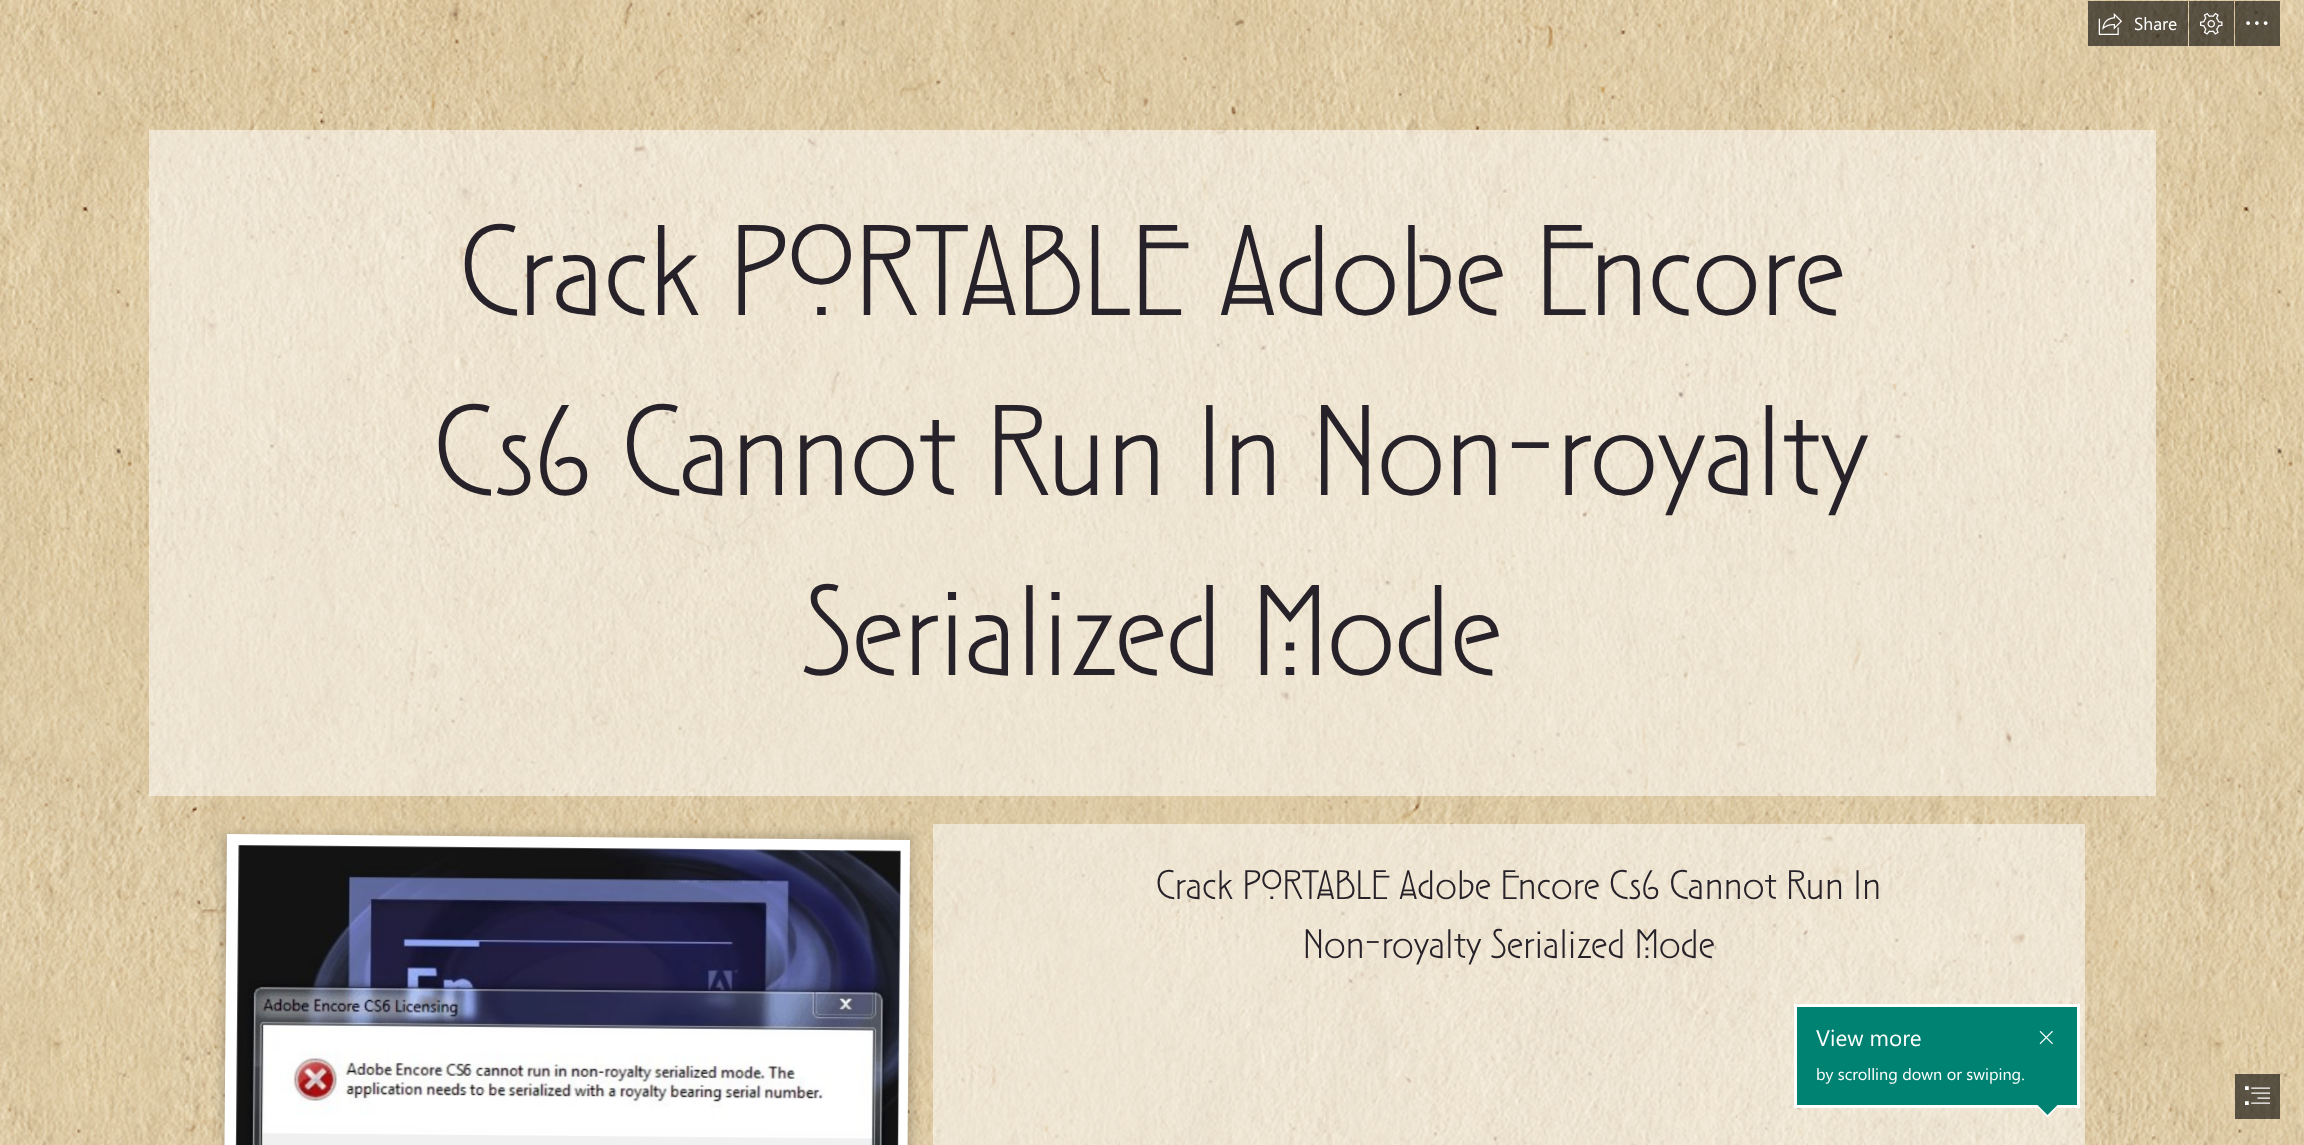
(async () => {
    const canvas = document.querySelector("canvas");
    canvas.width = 2304;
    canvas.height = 1145;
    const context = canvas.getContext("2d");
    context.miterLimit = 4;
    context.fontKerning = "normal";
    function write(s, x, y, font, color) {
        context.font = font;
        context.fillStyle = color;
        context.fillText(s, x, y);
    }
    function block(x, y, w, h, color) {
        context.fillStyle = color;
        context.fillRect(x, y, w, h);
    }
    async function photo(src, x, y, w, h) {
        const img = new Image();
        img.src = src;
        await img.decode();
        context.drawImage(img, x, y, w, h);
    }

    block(0, 0, 2304, 1145, "rgb(255, 255, 255)");
    await photo("media/4.png", 0, 0, 2304, 1145);
    block(2088, 1, 100, 45, "rgba(0, 0, 0, 0.6)");
    await photo("media/1.png", 2098, 13, 24, 22);
    write("Share", 2134, 30, "17.5px Segoe UI", "rgb(255, 255, 255)");
    block(2189, 1, 45, 45, "rgba(0, 0, 0, 0.6)");
    await photo("media/2.png", 2200, 12, 23, 23);
    block(2235, 1, 45, 45, "rgba(0, 0, 0, 0.6)");
    await photo("media/3.png", 2246, 21, 22, 4);
    block(149, 130, 2007, 666, "rgba(255, 255, 255, 0.5)");
    write("Crack PORTABLE Adobe Encore", 460, 315, "300 135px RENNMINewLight", "rgb(39, 34, 41)");
    write("Cs6 Cannot Run In Non-royalty", 434, 495, "300 135px RENNMINewLight", "rgb(39, 34, 41)");
    write("Serialized Mode", 803, 675, "300 135px RENNMINewLight", "rgb(39, 34, 41)");
    context.fillStyle = "rgba(0, 0, 0, 0.15)";
    context.filter = "blur(4.5px)";
    context.beginPath();
    context.rect(221, 834, 692, 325);
    context.fill();
    context.filter = "none";
    context.fillStyle = "rgb(255, 255, 255)";
    context.beginPath();
    context.moveTo(227, 834);
    context.lineTo(910, 840);
    context.lineTo(906, 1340);
    context.lineTo(223, 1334);
    context.closePath();
    context.fill();
    await photo("media/5.png", 235, 845, 666, 300);
    block(933, 824, 1152, 321, "rgba(255, 255, 255, 0.5)");
    write("Crack PORTABLE Adobe Encore Cs6 Cannot Run In", 1156, 899, "300 43.25px RENNMINewLight", "rgb(39, 34, 41)");
    write("Non-royalty Serialized Mode", 1303, 958, "300 43.25px RENNMINewLight", "rgb(39, 34, 41)");
    context.fillStyle = "rgb(0, 130, 114)";
    context.beginPath();
    context.rect(1795.5, 1005.5, 283, 101);
    context.fill();
    context.strokeStyle = "rgb(255, 255, 255)";
    context.lineWidth = 3;
    context.stroke();
    write("View more", 1816, 1046, "22.5px Segoe UI", "rgb(255, 255, 255)");
    write("by scrolling down or swiping.", 1816, 1080, "16.25px Segoe UI", "rgb(255, 255, 255)");
    await photo("media/6.png", 2039, 1030, 14, 15);
    context.beginPath();
    context.moveTo(2035, 1105);
    context.lineTo(2060, 1105);
    context.lineTo(2047.5, 1117.5);
    context.closePath();
    context.fill();
    context.fillStyle = "rgb(0, 130, 114)";
    context.beginPath();
    context.moveTo(2037.5, 1105);
    context.lineTo(2057.5, 1105);
    context.lineTo(2047.5, 1115);
    context.closePath();
    context.fill();
    block(2235, 1074, 45, 45, "rgba(0, 0, 0, 0.6)");
    await photo("media/7.png", 2245, 1086, 25, 19);
})();
